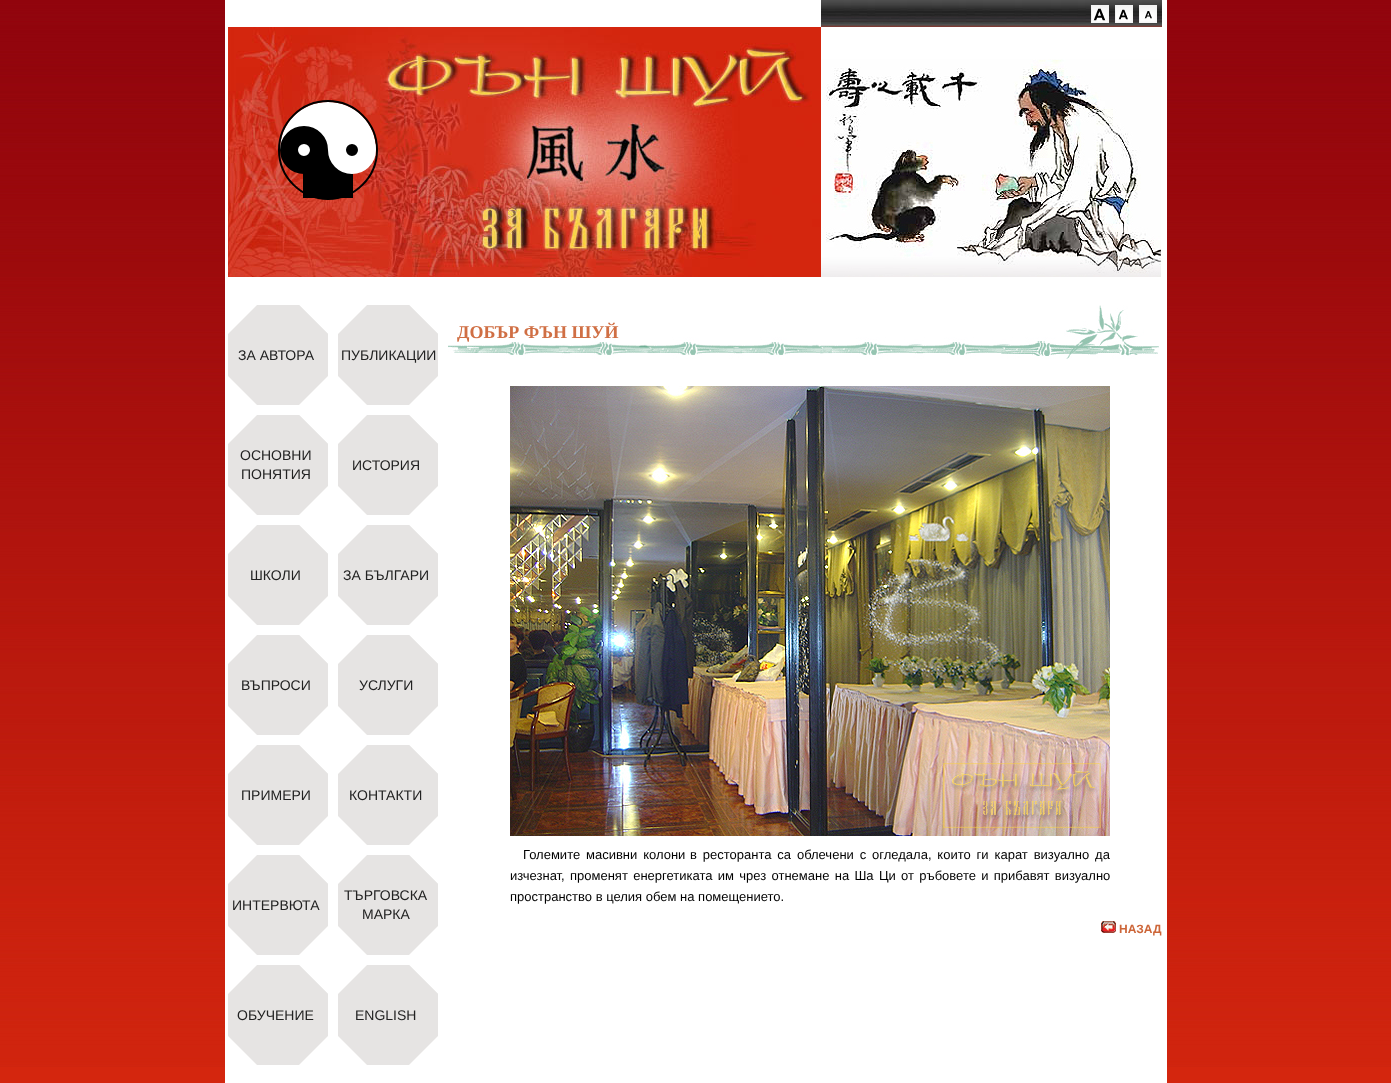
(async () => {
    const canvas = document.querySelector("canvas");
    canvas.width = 1391;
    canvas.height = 1083;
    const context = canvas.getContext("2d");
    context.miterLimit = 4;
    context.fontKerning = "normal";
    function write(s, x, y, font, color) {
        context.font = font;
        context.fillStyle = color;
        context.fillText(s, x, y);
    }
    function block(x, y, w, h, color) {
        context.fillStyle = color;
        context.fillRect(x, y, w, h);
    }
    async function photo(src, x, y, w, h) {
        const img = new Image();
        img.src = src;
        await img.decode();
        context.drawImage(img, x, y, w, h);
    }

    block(0, 0, 1391, 1083, "rgb(212, 38, 14)");
    await photo("media/1.png", 0, 531, 1391, 536);
    await photo("media/2.png", 0, 0, 1391, 531);
    block(225, 0, 942, 1083, "rgb(255, 255, 255)");
    await photo("media/3.png", 228, 27, 593, 250);
    context.beginPath();
    context.moveTo(328, 102);
    context.bezierCurveTo(355, 102, 376, 123, 376, 150);
    context.lineTo(280, 150);
    context.bezierCurveTo(280, 123, 301, 102, 328, 102);
    context.closePath();
    context.fill();
    context.beginPath();
    context.arc(328, 150, 49, 0, Math.PI * 2);
    context.strokeStyle = "rgb(0, 0, 0)";
    context.lineWidth = 2;
    context.stroke();
    block(303, 150, 50, 48, "rgb(0, 0, 0)");
    context.fillStyle = "rgb(255, 255, 255)";
    context.beginPath();
    context.arc(304, 150, 15, 0, Math.PI * 2);
    context.fill();
    context.lineWidth = 18;
    context.stroke();
    context.fillStyle = "rgb(0, 0, 0)";
    context.beginPath();
    context.arc(352, 150, 15, 0, Math.PI * 2);
    context.fill();
    context.strokeStyle = "rgb(255, 255, 255)";
    context.stroke();
    await photo("media/4.png", 821, 0, 341, 27);
    await photo("media/5.png", 1091, 5, 18, 18);
    await photo("media/6.png", 1115, 5, 18, 18);
    await photo("media/7.png", 1139, 5, 18, 18);
    await photo("media/8.png", 821, 59, 340, 218);
    block(228, 305, 100, 100, "rgb(230, 228, 227)");
    context.fillStyle = "rgb(255, 255, 255)";
    context.beginPath();
    context.moveTo(328, 305);
    context.lineTo(328, 334);
    context.lineTo(299, 305);
    context.closePath();
    context.fill();
    context.fillStyle = "rgb(230, 228, 227)";
    context.beginPath();
    context.moveTo(328, 334);
    context.lineTo(228, 334);
    context.lineTo(257, 305);
    context.lineTo(299, 305);
    context.closePath();
    context.fill();
    context.fillStyle = "rgb(255, 255, 255)";
    context.beginPath();
    context.moveTo(228, 334);
    context.lineTo(228, 305);
    context.lineTo(257, 305);
    context.closePath();
    context.fill();
    write("ЗА АВТОРА", 238, 360, "14px Liberation Sans", "rgb(34, 34, 34)");
    context.fillStyle = "rgb(255, 255, 255)";
    context.beginPath();
    context.moveTo(328, 376);
    context.lineTo(328, 405);
    context.lineTo(299, 405);
    context.closePath();
    context.fill();
    context.beginPath();
    context.moveTo(228, 405);
    context.lineTo(228, 376);
    context.lineTo(257, 405);
    context.closePath();
    context.fill();
    block(338, 305, 100, 100, "rgb(230, 228, 227)");
    context.fillStyle = "rgb(255, 255, 255)";
    context.beginPath();
    context.moveTo(438, 305);
    context.lineTo(438, 334);
    context.lineTo(409, 305);
    context.closePath();
    context.fill();
    context.fillStyle = "rgb(230, 228, 227)";
    context.beginPath();
    context.moveTo(438, 334);
    context.lineTo(338, 334);
    context.lineTo(367, 305);
    context.lineTo(409, 305);
    context.closePath();
    context.fill();
    context.fillStyle = "rgb(255, 255, 255)";
    context.beginPath();
    context.moveTo(338, 334);
    context.lineTo(338, 305);
    context.lineTo(367, 305);
    context.closePath();
    context.fill();
    write("ПУБЛИКАЦИИ", 341, 360, "14px Liberation Sans", "rgb(34, 34, 34)");
    context.fillStyle = "rgb(255, 255, 255)";
    context.beginPath();
    context.moveTo(438, 376);
    context.lineTo(438, 405);
    context.lineTo(409, 405);
    context.closePath();
    context.fill();
    context.beginPath();
    context.moveTo(338, 405);
    context.lineTo(338, 376);
    context.lineTo(367, 405);
    context.closePath();
    context.fill();
    block(228, 415, 100, 100, "rgb(230, 228, 227)");
    context.fillStyle = "rgb(255, 255, 255)";
    context.beginPath();
    context.moveTo(328, 415);
    context.lineTo(328, 444);
    context.lineTo(299, 415);
    context.closePath();
    context.fill();
    context.fillStyle = "rgb(230, 228, 227)";
    context.beginPath();
    context.moveTo(328, 444);
    context.lineTo(228, 444);
    context.lineTo(257, 415);
    context.lineTo(299, 415);
    context.closePath();
    context.fill();
    context.fillStyle = "rgb(255, 255, 255)";
    context.beginPath();
    context.moveTo(228, 444);
    context.lineTo(228, 415);
    context.lineTo(257, 415);
    context.closePath();
    context.fill();
    write("ОСНОВНИ", 240, 460, "14px Liberation Sans", "rgb(34, 34, 34)");
    write("ПОНЯТИЯ", 241, 479, "14px Liberation Sans", "rgb(34, 34, 34)");
    context.fillStyle = "rgb(255, 255, 255)";
    context.beginPath();
    context.moveTo(328, 486);
    context.lineTo(328, 515);
    context.lineTo(299, 515);
    context.closePath();
    context.fill();
    context.beginPath();
    context.moveTo(228, 515);
    context.lineTo(228, 486);
    context.lineTo(257, 515);
    context.closePath();
    context.fill();
    block(338, 415, 100, 100, "rgb(230, 228, 227)");
    context.fillStyle = "rgb(255, 255, 255)";
    context.beginPath();
    context.moveTo(438, 415);
    context.lineTo(438, 444);
    context.lineTo(409, 415);
    context.closePath();
    context.fill();
    context.fillStyle = "rgb(230, 228, 227)";
    context.beginPath();
    context.moveTo(438, 444);
    context.lineTo(338, 444);
    context.lineTo(367, 415);
    context.lineTo(409, 415);
    context.closePath();
    context.fill();
    context.fillStyle = "rgb(255, 255, 255)";
    context.beginPath();
    context.moveTo(338, 444);
    context.lineTo(338, 415);
    context.lineTo(367, 415);
    context.closePath();
    context.fill();
    write("ИСТОРИЯ", 352, 470, "14px Liberation Sans", "rgb(34, 34, 34)");
    context.fillStyle = "rgb(255, 255, 255)";
    context.beginPath();
    context.moveTo(438, 486);
    context.lineTo(438, 515);
    context.lineTo(409, 515);
    context.closePath();
    context.fill();
    context.beginPath();
    context.moveTo(338, 515);
    context.lineTo(338, 486);
    context.lineTo(367, 515);
    context.closePath();
    context.fill();
    block(228, 525, 100, 100, "rgb(230, 228, 227)");
    context.fillStyle = "rgb(255, 255, 255)";
    context.beginPath();
    context.moveTo(328, 525);
    context.lineTo(328, 554);
    context.lineTo(299, 525);
    context.closePath();
    context.fill();
    context.fillStyle = "rgb(230, 228, 227)";
    context.beginPath();
    context.moveTo(328, 554);
    context.lineTo(228, 554);
    context.lineTo(257, 525);
    context.lineTo(299, 525);
    context.closePath();
    context.fill();
    context.fillStyle = "rgb(255, 255, 255)";
    context.beginPath();
    context.moveTo(228, 554);
    context.lineTo(228, 525);
    context.lineTo(257, 525);
    context.closePath();
    context.fill();
    write("ШКОЛИ", 250, 580, "14px Liberation Sans", "rgb(34, 34, 34)");
    context.fillStyle = "rgb(255, 255, 255)";
    context.beginPath();
    context.moveTo(328, 596);
    context.lineTo(328, 625);
    context.lineTo(299, 625);
    context.closePath();
    context.fill();
    context.beginPath();
    context.moveTo(228, 625);
    context.lineTo(228, 596);
    context.lineTo(257, 625);
    context.closePath();
    context.fill();
    block(338, 525, 100, 100, "rgb(230, 228, 227)");
    context.fillStyle = "rgb(255, 255, 255)";
    context.beginPath();
    context.moveTo(438, 525);
    context.lineTo(438, 554);
    context.lineTo(409, 525);
    context.closePath();
    context.fill();
    context.fillStyle = "rgb(230, 228, 227)";
    context.beginPath();
    context.moveTo(438, 554);
    context.lineTo(338, 554);
    context.lineTo(367, 525);
    context.lineTo(409, 525);
    context.closePath();
    context.fill();
    context.fillStyle = "rgb(255, 255, 255)";
    context.beginPath();
    context.moveTo(338, 554);
    context.lineTo(338, 525);
    context.lineTo(367, 525);
    context.closePath();
    context.fill();
    write("ЗА БЪЛГАРИ", 343, 580, "14px Liberation Sans", "rgb(34, 34, 34)");
    context.fillStyle = "rgb(255, 255, 255)";
    context.beginPath();
    context.moveTo(438, 596);
    context.lineTo(438, 625);
    context.lineTo(409, 625);
    context.closePath();
    context.fill();
    context.beginPath();
    context.moveTo(338, 625);
    context.lineTo(338, 596);
    context.lineTo(367, 625);
    context.closePath();
    context.fill();
    block(228, 635, 100, 100, "rgb(230, 228, 227)");
    context.fillStyle = "rgb(255, 255, 255)";
    context.beginPath();
    context.moveTo(328, 635);
    context.lineTo(328, 664);
    context.lineTo(299, 635);
    context.closePath();
    context.fill();
    context.fillStyle = "rgb(230, 228, 227)";
    context.beginPath();
    context.moveTo(328, 664);
    context.lineTo(228, 664);
    context.lineTo(257, 635);
    context.lineTo(299, 635);
    context.closePath();
    context.fill();
    context.fillStyle = "rgb(255, 255, 255)";
    context.beginPath();
    context.moveTo(228, 664);
    context.lineTo(228, 635);
    context.lineTo(257, 635);
    context.closePath();
    context.fill();
    write("ВЪПРОСИ", 241, 690, "14px Liberation Sans", "rgb(34, 34, 34)");
    context.fillStyle = "rgb(255, 255, 255)";
    context.beginPath();
    context.moveTo(328, 706);
    context.lineTo(328, 735);
    context.lineTo(299, 735);
    context.closePath();
    context.fill();
    context.beginPath();
    context.moveTo(228, 735);
    context.lineTo(228, 706);
    context.lineTo(257, 735);
    context.closePath();
    context.fill();
    block(338, 635, 100, 100, "rgb(230, 228, 227)");
    context.fillStyle = "rgb(255, 255, 255)";
    context.beginPath();
    context.moveTo(438, 635);
    context.lineTo(438, 664);
    context.lineTo(409, 635);
    context.closePath();
    context.fill();
    context.fillStyle = "rgb(230, 228, 227)";
    context.beginPath();
    context.moveTo(438, 664);
    context.lineTo(338, 664);
    context.lineTo(367, 635);
    context.lineTo(409, 635);
    context.closePath();
    context.fill();
    context.fillStyle = "rgb(255, 255, 255)";
    context.beginPath();
    context.moveTo(338, 664);
    context.lineTo(338, 635);
    context.lineTo(367, 635);
    context.closePath();
    context.fill();
    write("УСЛУГИ", 359, 690, "14px Liberation Sans", "rgb(34, 34, 34)");
    context.fillStyle = "rgb(255, 255, 255)";
    context.beginPath();
    context.moveTo(438, 706);
    context.lineTo(438, 735);
    context.lineTo(409, 735);
    context.closePath();
    context.fill();
    context.beginPath();
    context.moveTo(338, 735);
    context.lineTo(338, 706);
    context.lineTo(367, 735);
    context.closePath();
    context.fill();
    block(228, 745, 100, 100, "rgb(230, 228, 227)");
    context.fillStyle = "rgb(255, 255, 255)";
    context.beginPath();
    context.moveTo(328, 745);
    context.lineTo(328, 774);
    context.lineTo(299, 745);
    context.closePath();
    context.fill();
    context.fillStyle = "rgb(230, 228, 227)";
    context.beginPath();
    context.moveTo(328, 774);
    context.lineTo(228, 774);
    context.lineTo(257, 745);
    context.lineTo(299, 745);
    context.closePath();
    context.fill();
    context.fillStyle = "rgb(255, 255, 255)";
    context.beginPath();
    context.moveTo(228, 774);
    context.lineTo(228, 745);
    context.lineTo(257, 745);
    context.closePath();
    context.fill();
    write("ПРИМЕРИ", 241, 800, "14px Liberation Sans", "rgb(34, 34, 34)");
    context.fillStyle = "rgb(255, 255, 255)";
    context.beginPath();
    context.moveTo(328, 816);
    context.lineTo(328, 845);
    context.lineTo(299, 845);
    context.closePath();
    context.fill();
    context.beginPath();
    context.moveTo(228, 845);
    context.lineTo(228, 816);
    context.lineTo(257, 845);
    context.closePath();
    context.fill();
    block(338, 745, 100, 100, "rgb(230, 228, 227)");
    context.fillStyle = "rgb(255, 255, 255)";
    context.beginPath();
    context.moveTo(438, 745);
    context.lineTo(438, 774);
    context.lineTo(409, 745);
    context.closePath();
    context.fill();
    context.fillStyle = "rgb(230, 228, 227)";
    context.beginPath();
    context.moveTo(438, 774);
    context.lineTo(338, 774);
    context.lineTo(367, 745);
    context.lineTo(409, 745);
    context.closePath();
    context.fill();
    context.fillStyle = "rgb(255, 255, 255)";
    context.beginPath();
    context.moveTo(338, 774);
    context.lineTo(338, 745);
    context.lineTo(367, 745);
    context.closePath();
    context.fill();
    write("КОНТАКТИ", 349, 800, "14px Liberation Sans", "rgb(34, 34, 34)");
    context.fillStyle = "rgb(255, 255, 255)";
    context.beginPath();
    context.moveTo(438, 816);
    context.lineTo(438, 845);
    context.lineTo(409, 845);
    context.closePath();
    context.fill();
    context.beginPath();
    context.moveTo(338, 845);
    context.lineTo(338, 816);
    context.lineTo(367, 845);
    context.closePath();
    context.fill();
    block(228, 855, 100, 100, "rgb(230, 228, 227)");
    context.fillStyle = "rgb(255, 255, 255)";
    context.beginPath();
    context.moveTo(328, 855);
    context.lineTo(328, 884);
    context.lineTo(299, 855);
    context.closePath();
    context.fill();
    context.fillStyle = "rgb(230, 228, 227)";
    context.beginPath();
    context.moveTo(328, 884);
    context.lineTo(228, 884);
    context.lineTo(257, 855);
    context.lineTo(299, 855);
    context.closePath();
    context.fill();
    context.fillStyle = "rgb(255, 255, 255)";
    context.beginPath();
    context.moveTo(228, 884);
    context.lineTo(228, 855);
    context.lineTo(257, 855);
    context.closePath();
    context.fill();
    write("ИНТЕРВЮТА", 232, 910, "14px Liberation Sans", "rgb(34, 34, 34)");
    context.fillStyle = "rgb(255, 255, 255)";
    context.beginPath();
    context.moveTo(328, 926);
    context.lineTo(328, 955);
    context.lineTo(299, 955);
    context.closePath();
    context.fill();
    context.beginPath();
    context.moveTo(228, 955);
    context.lineTo(228, 926);
    context.lineTo(257, 955);
    context.closePath();
    context.fill();
    block(338, 855, 100, 100, "rgb(230, 228, 227)");
    context.fillStyle = "rgb(255, 255, 255)";
    context.beginPath();
    context.moveTo(438, 855);
    context.lineTo(438, 884);
    context.lineTo(409, 855);
    context.closePath();
    context.fill();
    context.fillStyle = "rgb(230, 228, 227)";
    context.beginPath();
    context.moveTo(438, 884);
    context.lineTo(338, 884);
    context.lineTo(367, 855);
    context.lineTo(409, 855);
    context.closePath();
    context.fill();
    context.fillStyle = "rgb(255, 255, 255)";
    context.beginPath();
    context.moveTo(338, 884);
    context.lineTo(338, 855);
    context.lineTo(367, 855);
    context.closePath();
    context.fill();
    write("ТЪРГОВСКА", 344, 900, "14px Liberation Sans", "rgb(34, 34, 34)");
    write("МАРКА", 362, 919, "14px Liberation Sans", "rgb(34, 34, 34)");
    context.fillStyle = "rgb(255, 255, 255)";
    context.beginPath();
    context.moveTo(438, 926);
    context.lineTo(438, 955);
    context.lineTo(409, 955);
    context.closePath();
    context.fill();
    context.beginPath();
    context.moveTo(338, 955);
    context.lineTo(338, 926);
    context.lineTo(367, 955);
    context.closePath();
    context.fill();
    block(228, 965, 100, 100, "rgb(230, 228, 227)");
    context.fillStyle = "rgb(255, 255, 255)";
    context.beginPath();
    context.moveTo(328, 965);
    context.lineTo(328, 994);
    context.lineTo(299, 965);
    context.closePath();
    context.fill();
    context.fillStyle = "rgb(230, 228, 227)";
    context.beginPath();
    context.moveTo(328, 994);
    context.lineTo(228, 994);
    context.lineTo(257, 965);
    context.lineTo(299, 965);
    context.closePath();
    context.fill();
    context.fillStyle = "rgb(255, 255, 255)";
    context.beginPath();
    context.moveTo(228, 994);
    context.lineTo(228, 965);
    context.lineTo(257, 965);
    context.closePath();
    context.fill();
    write("ОБУЧЕНИЕ", 237, 1020, "14px Liberation Sans", "rgb(34, 34, 34)");
    context.fillStyle = "rgb(255, 255, 255)";
    context.beginPath();
    context.moveTo(328, 1036);
    context.lineTo(328, 1065);
    context.lineTo(299, 1065);
    context.closePath();
    context.fill();
    context.beginPath();
    context.moveTo(228, 1065);
    context.lineTo(228, 1036);
    context.lineTo(257, 1065);
    context.closePath();
    context.fill();
    block(338, 965, 100, 100, "rgb(230, 228, 227)");
    context.fillStyle = "rgb(255, 255, 255)";
    context.beginPath();
    context.moveTo(438, 965);
    context.lineTo(438, 994);
    context.lineTo(409, 965);
    context.closePath();
    context.fill();
    context.fillStyle = "rgb(230, 228, 227)";
    context.beginPath();
    context.moveTo(438, 994);
    context.lineTo(338, 994);
    context.lineTo(367, 965);
    context.lineTo(409, 965);
    context.closePath();
    context.fill();
    context.fillStyle = "rgb(255, 255, 255)";
    context.beginPath();
    context.moveTo(338, 994);
    context.lineTo(338, 965);
    context.lineTo(367, 965);
    context.closePath();
    context.fill();
    write("ENGLISH", 355, 1020, "14px Liberation Sans", "rgb(34, 34, 34)");
    context.fillStyle = "rgb(255, 255, 255)";
    context.beginPath();
    context.moveTo(438, 1036);
    context.lineTo(438, 1065);
    context.lineTo(409, 1065);
    context.closePath();
    context.fill();
    context.beginPath();
    context.moveTo(338, 1065);
    context.lineTo(338, 1036);
    context.lineTo(367, 1065);
    context.closePath();
    context.fill();
    await photo("media/9.png", 448, 305, 711, 54);
    write("ДОБЪР ФЪН ШУЙ", 457, 338, "bold 18px Liberation Serif", "rgb(208, 111, 68)");
    await photo("media/10.png", 510, 386, 600, 450);
    context.wordSpacing = "2.25px";
    write("Големите масивни колони", 523, 859, "13px Liberation Sans", "rgb(0, 0, 0)");
    write("в ресторанта са облечени с огледала, които ги карат визуално да", 690, 859, "13px Liberation Sans", "rgb(0, 0, 0)");
    context.wordSpacing = "1.7px";
    write("изчезнат, променят енергетиката им чрез отнемане на Ша Ци от ръбовете и прибавят визуално", 510, 880, "13px Liberation Sans", "rgb(0, 0, 0)");
    context.wordSpacing = "0px";
    write("пространство в целия обем на помещението.", 510, 901, "13px Liberation Sans", "rgb(0, 0, 0)");
    await photo("media/11.png", 1101, 921, 15, 12);
    write("НАЗАД", 1119, 933, "bold 12px Liberation Sans", "rgb(205, 102, 57)");
})();
